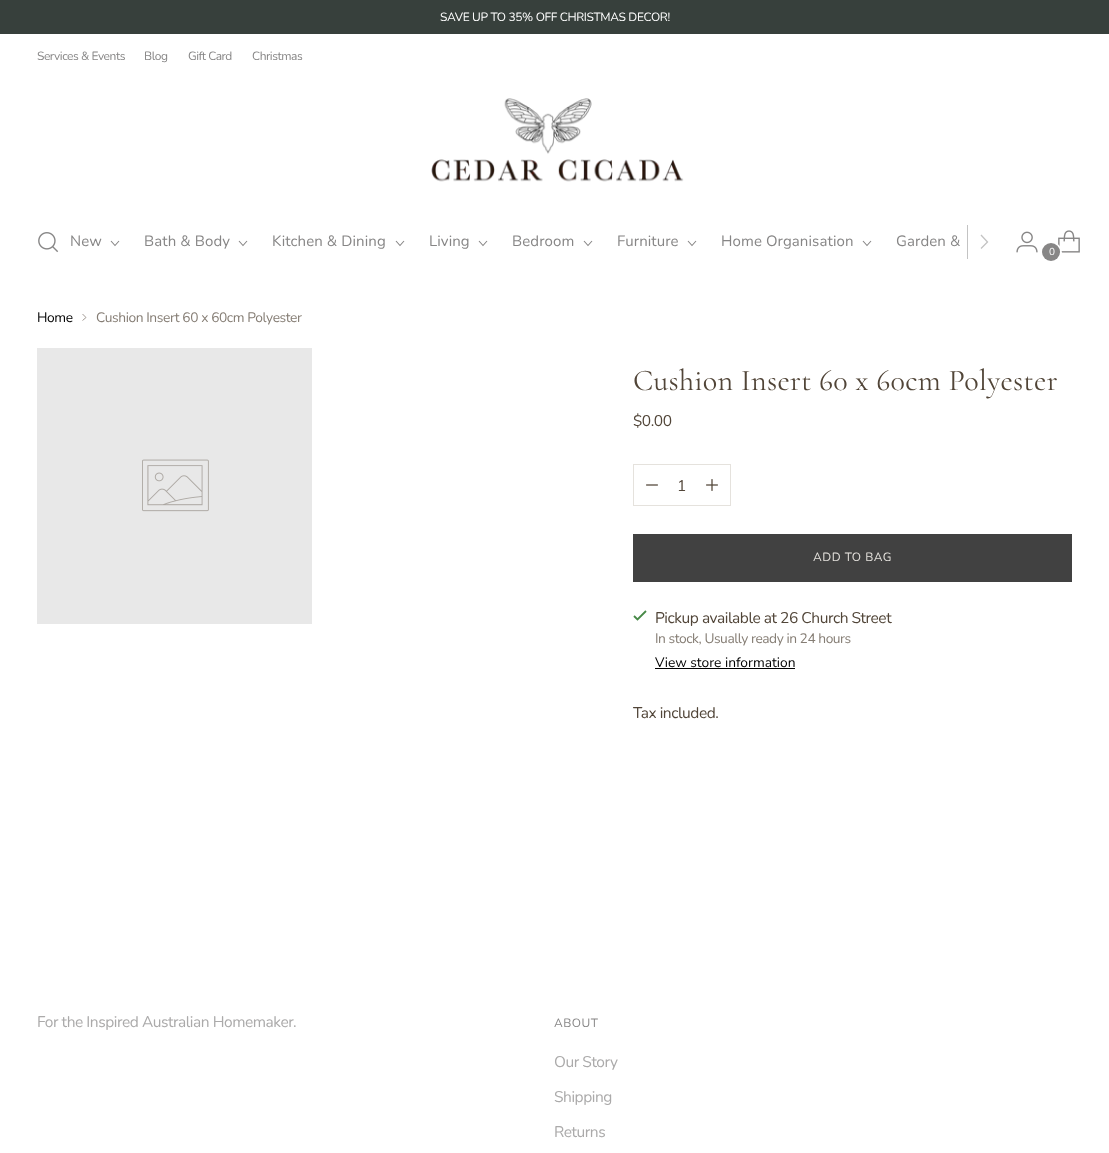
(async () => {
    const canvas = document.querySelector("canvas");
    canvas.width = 1109;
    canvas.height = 1153;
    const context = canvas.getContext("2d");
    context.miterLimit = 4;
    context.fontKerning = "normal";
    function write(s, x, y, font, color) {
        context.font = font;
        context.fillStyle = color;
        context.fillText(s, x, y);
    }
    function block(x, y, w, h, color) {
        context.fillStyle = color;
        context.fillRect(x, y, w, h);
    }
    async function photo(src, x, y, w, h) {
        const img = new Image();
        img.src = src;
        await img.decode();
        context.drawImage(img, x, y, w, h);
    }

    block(0, 0, 1109, 1153, "rgb(255, 255, 255)");
    block(0, 0, 1109, 34, "rgb(55, 64, 60)");
    context.letterSpacing = "-0.35px";
    write("SAVE UP TO 35% OFF CHRISTMAS DECOR!", 440, 21, "12px Nunito", "rgb(255, 255, 255)");
    context.letterSpacing = "-0.45px";
    write("Services & Events", 37, 60, "12px Nunito", "rgb(135, 134, 134)");
    write("Blog", 144, 60, "12px Nunito", "rgb(135, 134, 134)");
    write("Gift Card", 188, 60, "12px Nunito", "rgb(135, 134, 134)");
    write("Christmas", 252, 60, "12px Nunito", "rgb(135, 134, 134)");
    await photo("media/1.png", 431, 98, 253, 84);
    await photo("media/2.png", 38, 232, 21, 21);
    context.letterSpacing = "0.1px";
    write("New", 70, 246, "15px Nunito", "rgb(135, 134, 134)");
    context.beginPath();
    context.moveTo(111, 241);
    context.lineTo(115, 245.5);
    context.lineTo(119, 241);
    context.strokeStyle = "rgb(135, 134, 134)";
    context.lineWidth = 1.1;
    context.stroke();
    write("Bath & Body", 144, 246, "15px Nunito", "rgb(135, 134, 134)");
    context.beginPath();
    context.moveTo(239, 241);
    context.lineTo(243, 245.5);
    context.lineTo(247, 241);
    context.stroke();
    write("Kitchen & Dining", 272, 246, "15px Nunito", "rgb(135, 134, 134)");
    context.beginPath();
    context.moveTo(396, 241);
    context.lineTo(400, 245.5);
    context.lineTo(404, 241);
    context.stroke();
    write("Living", 429, 246, "15px Nunito", "rgb(135, 134, 134)");
    context.beginPath();
    context.moveTo(479, 241);
    context.lineTo(483, 245.5);
    context.lineTo(487, 241);
    context.stroke();
    write("Bedroom", 512, 246, "15px Nunito", "rgb(135, 134, 134)");
    context.beginPath();
    context.moveTo(584, 241);
    context.lineTo(588, 245.5);
    context.lineTo(592, 241);
    context.stroke();
    write("Furniture", 617, 246, "15px Nunito", "rgb(135, 134, 134)");
    context.beginPath();
    context.moveTo(688, 241);
    context.lineTo(692, 245.5);
    context.lineTo(696, 241);
    context.stroke();
    write("Home Organisation", 721, 246, "15px Nunito", "rgb(135, 134, 134)");
    context.beginPath();
    context.moveTo(863, 241);
    context.lineTo(867, 245.5);
    context.lineTo(871, 241);
    context.stroke();
    write("Garden &", 896, 246, "15px Nunito", "rgb(135, 134, 134)");
    block(967, 225, 1, 34, "rgb(195, 195, 195)");
    context.beginPath();
    context.moveTo(981, 248.5);
    context.lineTo(987.5, 242);
    context.lineTo(981, 235);
    context.strokeStyle = "rgb(195, 195, 195)";
    context.lineWidth = 1.3;
    context.stroke();
    await photo("media/3.png", 1016, 231, 22, 22);
    await photo("media/4.png", 1058, 230, 22, 23);
    context.beginPath();
    context.arc(1051.5, 252.5, 9.5, 0, Math.PI * 2);
    context.strokeStyle = "rgb(255, 255, 255)";
    context.lineWidth = 2;
    context.stroke();
    context.fillStyle = "rgb(135, 134, 134)";
    context.beginPath();
    context.arc(1051, 252, 9, 0, Math.PI * 2);
    context.fill();
    context.letterSpacing = "-0.45px";
    write("0", 1049, 255, "10px Nunito", "rgb(255, 255, 255)");
    context.letterSpacing = "-0.4px";
    write("Home", 37, 322, "13.75px Nunito", "rgb(0, 0, 0)");
    context.beginPath();
    context.moveTo(82.5, 320.5);
    context.lineTo(86, 317.5);
    context.lineTo(82.5, 314);
    context.strokeStyle = "rgb(151, 143, 136)";
    context.lineWidth = 0.9;
    context.stroke();
    write("Cushion Insert 60 x 60cm Polyester", 96, 322, "13.75px Nunito", "rgb(133, 125, 116)");
    block(37, 348, 275, 276, "rgb(232, 232, 232)");
    await photo("media/5.png", 142, 459, 67, 53);
    context.letterSpacing = "0.3px";
    write("Cushion Insert 60 x 60cm Polyester", 633, 390, "30.1px Cormorant", "rgb(81, 69, 56)");
    context.letterSpacing = "-0.45px";
    write("$0.00", 633, 426, "15.5px Nunito", "rgb(81, 69, 56)");
    context.strokeStyle = "rgb(229, 226, 221)";
    context.lineWidth = 1;
    context.strokeRect(633.5, 464.5, 97, 41);
    await photo("media/6.png", 646, 484, 12, 2);
    context.letterSpacing = "0px";
    write("1", 677, 491, "15.5px Nunito", "rgb(81, 69, 56)");
    await photo("media/7.png", 706, 479, 12, 12);
    context.save();
    context.beginPath();
    context.rect(633, 534, 439, 48);
    context.clip();
    context.fillStyle = "rgb(65, 65, 65)";
    context.beginPath();
    context.moveTo(553, 534);
    context.lineTo(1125, 534);
    context.lineTo(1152, 582);
    context.lineTo(581, 582);
    context.closePath();
    context.fill();
    context.restore();
    context.letterSpacing = "0.5px";
    write("ADD TO BAG", 813, 561, "12px Nunito", "rgb(229, 226, 221)");
    context.beginPath();
    context.moveTo(634, 616);
    context.lineTo(637.5, 619.5);
    context.lineTo(646, 611);
    context.strokeStyle = "rgb(71, 137, 71)";
    context.lineWidth = 1.8;
    context.stroke();
    context.letterSpacing = "-0.45px";
    write("Pickup available at 26 Church Street", 655, 623, "15.5px Nunito", "rgb(81, 69, 56)");
    write("In stock, Usually ready in 24 hours", 655, 643, "13.75px Nunito", "rgb(133, 125, 116)");
    context.letterSpacing = "0px";
    write("View store information", 655, 667, "13.75px Nunito", "rgb(0, 0, 0)");
    block(655, 668, 140, 1, "rgb(0, 0, 0)");
    context.letterSpacing = "-0.45px";
    write("Tax included.", 633, 718, "15.5px Nunito", "rgb(81, 69, 56)");
    write("For the Inspired Australian Homemaker.", 37, 1027, "15.5px Nunito", "rgb(171, 170, 170)");
    context.letterSpacing = "0.5px";
    write("ABOUT", 554, 1027, "12px Nunito", "rgb(135, 134, 134)");
    context.letterSpacing = "-0.45px";
    write("Our Story", 554, 1067, "15.5px Nunito", "rgb(171, 170, 170)");
    write("Shipping", 554, 1102, "15.5px Nunito", "rgb(171, 170, 170)");
    write("Returns", 554, 1137, "15.5px Nunito", "rgb(171, 170, 170)");
})();
